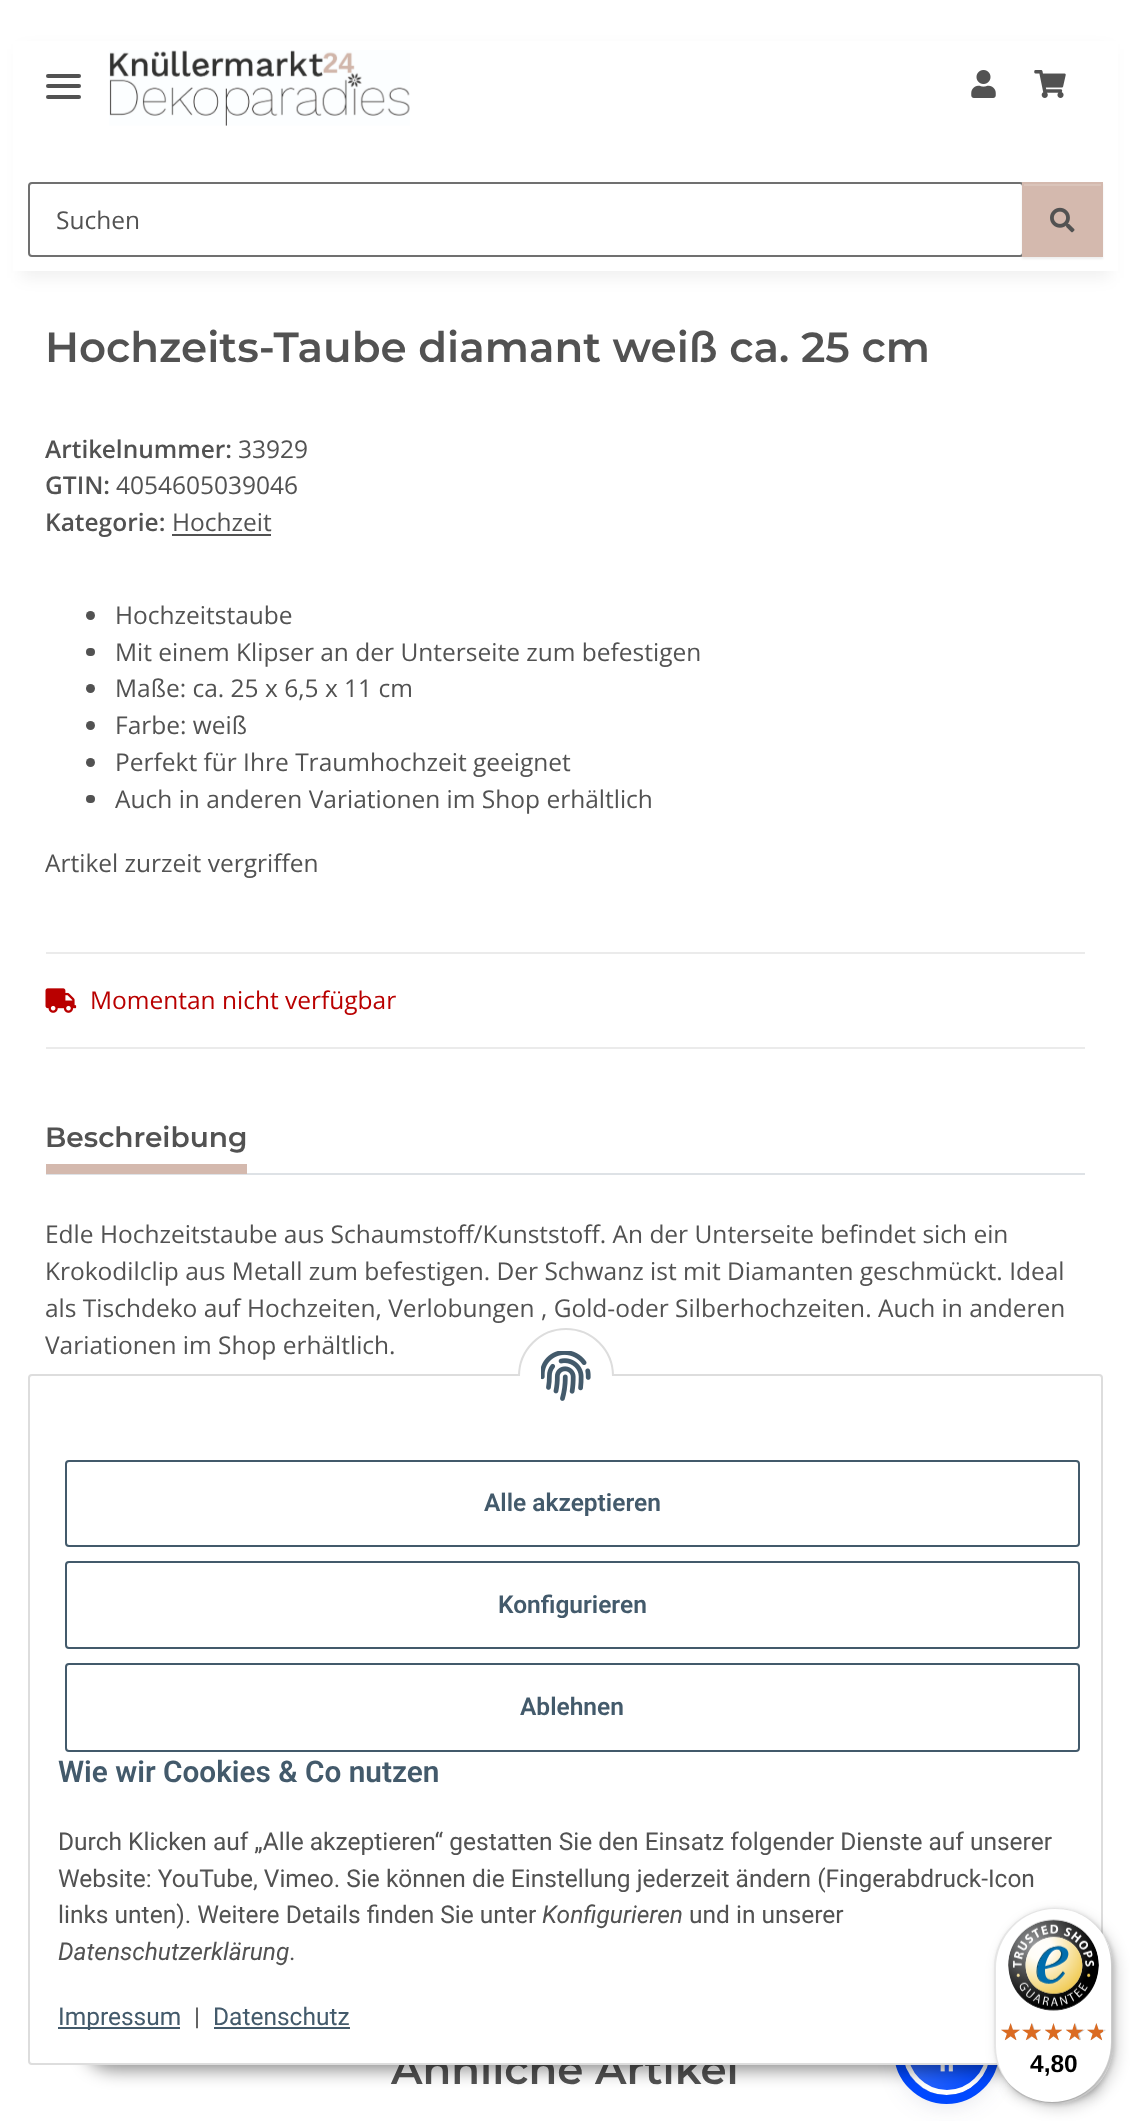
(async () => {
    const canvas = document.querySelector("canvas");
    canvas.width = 1130;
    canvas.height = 2121;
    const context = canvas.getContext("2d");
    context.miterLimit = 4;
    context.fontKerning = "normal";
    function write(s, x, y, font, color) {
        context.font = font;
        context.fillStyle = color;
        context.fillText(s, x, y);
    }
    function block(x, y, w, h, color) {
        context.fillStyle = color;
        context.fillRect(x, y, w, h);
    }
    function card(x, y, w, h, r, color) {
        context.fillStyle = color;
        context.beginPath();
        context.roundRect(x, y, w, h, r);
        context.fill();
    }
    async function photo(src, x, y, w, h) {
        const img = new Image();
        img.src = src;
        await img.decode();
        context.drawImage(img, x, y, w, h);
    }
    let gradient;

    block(0, 0, 1130, 2121, "rgb(255, 255, 255)");
    context.fillStyle = "rgba(0, 0, 0, 0.06)";
    context.filter = "blur(8px)";
    context.beginPath();
    context.rect(21, 49, 1089, 229);
    context.fill();
    context.filter = "none";
    block(13, 41, 1105, 230, "rgb(255, 255, 255)");
    card(46, 84, 35, 4, 2, "rgb(82, 82, 82)");
    card(46, 74, 35, 4, 2, "rgb(82, 82, 82)");
    card(46, 95, 35, 4, 2, "rgb(82, 82, 82)");
    await photo("media/1.png", 109, 50, 301, 76);
    await photo("media/2.png", 971, 70, 25, 28);
    await photo("media/3.png", 1034, 70, 32, 28);
    context.beginPath();
    context.roundRect(29, 183, 994, 73, 3);
    context.strokeStyle = "rgb(112, 112, 112)";
    context.lineWidth = 2;
    context.stroke();
    write("Suchen", 56, 229, "24.5px Open Sans", "rgb(82, 82, 82)");
    context.fillStyle = "rgba(0, 0, 0, 0.07)";
    context.filter = "blur(1px)";
    context.beginPath();
    context.rect(1022, 184, 81, 75);
    context.fill();
    context.filter = "none";
    block(1022, 182, 81, 75, "rgb(212, 185, 174)");
    block(1024, 184, 77, 2, "rgb(218, 196, 186)");
    await photo("media/4.png", 1050, 207, 25, 26);
    write("Hochzeits-Taube diamant weiß ca. 25 cm", 45, 362, "600 42px Montserrat", "rgb(82, 82, 82)");
    write("Artikelnummer:", 45, 458, "600 24.5px Open Sans", "rgb(82, 82, 82)");
    write("33929", 238, 458, "24.5px Open Sans", "rgb(82, 82, 82)");
    write("GTIN:", 45, 494, "600 24.5px Open Sans", "rgb(82, 82, 82)");
    write("4054605039046", 116, 494, "24.5px Open Sans", "rgb(82, 82, 82)");
    write("Kategorie:", 45, 531, "600 24.5px Open Sans", "rgb(82, 82, 82)");
    write("Hochzeit", 172, 531, "24.5px Open Sans", "rgb(82, 82, 82)");
    block(172, 534, 99, 2, "rgb(82, 82, 82)");
    context.beginPath();
    context.arc(90.5, 615.5, 4.5, 0, Math.PI * 2);
    context.fill();
    write("Hochzeitstaube", 115, 624, "24.5px Open Sans", "rgb(82, 82, 82)");
    card(86, 648, 9, 8, 4, "rgb(82, 82, 82)");
    write("Mit einem Klipser an der Unterseite zum befestigen", 115, 661, "24.5px Open Sans", "rgb(82, 82, 82)");
    context.beginPath();
    context.arc(90.5, 688.5, 4.5, 0, Math.PI * 2);
    context.fill();
    write("Maße: ca. 25 x 6,5 x 11 cm", 115, 697, "24.5px Open Sans", "rgb(82, 82, 82)");
    context.beginPath();
    context.arc(90.5, 725.5, 4.5, 0, Math.PI * 2);
    context.fill();
    write("Farbe: weiß", 115, 734, "24.5px Open Sans", "rgb(82, 82, 82)");
    context.beginPath();
    context.arc(90.5, 762.5, 4.5, 0, Math.PI * 2);
    context.fill();
    write("Perfekt für Ihre Traumhochzeit geeignet", 115, 771, "24.5px Open Sans", "rgb(82, 82, 82)");
    card(86, 795, 9, 8, 4, "rgb(82, 82, 82)");
    write("Auch in anderen Variationen im Shop erhältlich", 115, 808, "24.5px Open Sans", "rgb(82, 82, 82)");
    write("Artikel zurzeit vergriffen", 45, 872, "24.5px Open Sans", "rgb(82, 82, 82)");
    block(46, 952, 1039, 2, "rgb(235, 235, 235)");
    block(46, 1047, 1039, 2, "rgb(235, 235, 235)");
    await photo("media/5.png", 45, 988, 32, 25);
    write("Momentan nicht verfügbar", 90, 1009, "24.5px Open Sans", "rgb(185, 0, 0)");
    block(46, 1173, 1039, 2, "rgb(222, 226, 230)");
    write("Beschreibung", 45, 1147, "600 28px Montserrat", "rgb(82, 82, 82)");
    block(46, 1164, 201, 10, "rgb(212, 185, 174)");
    write("Edle Hochzeitstaube aus Schaumstoff/Kunststoff. An der Unterseite befindet sich ein", 45, 1243, "24.5px Open Sans", "rgb(82, 82, 82)");
    write("Krokodilclip aus Metall zum befestigen. Der Schwanz ist mit Diamanten geschmückt. Ideal", 45, 1280, "24.5px Open Sans", "rgb(82, 82, 82)");
    write("als Tischdeko auf Hochzeiten, Verlobungen , Gold-oder Silberhochzeiten. Auch in anderen", 45, 1317, "24.5px Open Sans", "rgb(82, 82, 82)");
    write("Variationen im Shop erhältlich.", 45, 1354, "24.5px Open Sans", "rgb(82, 82, 82)");
    write("Ähnliche Artikel", 391, 2084, "600 42px Montserrat", "rgb(82, 82, 82)");
    context.fillStyle = "rgba(93, 100, 148, 0.2)";
    context.filter = "blur(3.5px)";
    context.beginPath();
    context.roundRect(903, 2011, 88, 87, 43.5);
    context.fill();
    context.filter = "none";
    context.fillStyle = "rgba(37, 44, 97, 0.15)";
    context.filter = "blur(13px)";
    context.beginPath();
    context.roundRect(903, 2016, 88, 88, 44);
    context.fill();
    context.filter = "none";
    context.save();
    context.beginPath();
    context.roundRect(903, 2007, 88, 88, 44);
    context.clip();
    gradient = context.createLinearGradient(905, 2047, 989, 2055);
    gradient.addColorStop(0, "rgb(50, 108, 255)");
    gradient.addColorStop(1, "rgb(0, 72, 255)");
    context.fillStyle = gradient;
    context.fillRect(908, 2065, 77, 25);
    context.restore();
    context.beginPath();
    context.arc(947, 2051, 41.5, 0, Math.PI * 2);
    context.strokeStyle = "rgb(255, 255, 255)";
    context.lineWidth = 5;
    context.stroke();
    context.beginPath();
    context.arc(946.5, 2051.5, 48, 0, Math.PI * 2);
    context.strokeStyle = "rgb(0, 72, 255)";
    context.lineWidth = 9;
    context.stroke();
    await photo("media/7.png", 940, 2065, 13, 7);
    context.fillStyle = "rgba(0, 0, 0, 0.45)";
    context.filter = "blur(9px)";
    context.beginPath();
    context.roundRect(84, 2014, 963, 56, 28);
    context.fill();
    context.filter = "none";
    context.fillStyle = "rgba(0, 0, 0, 0.2)";
    context.filter = "blur(7px)";
    context.beginPath();
    context.roundRect(1013, 2016, 83, 77, 4);
    context.fill();
    context.filter = "none";
    context.fillStyle = "rgb(255, 255, 255)";
    context.beginPath();
    context.roundRect(29, 1375, 1073, 689, 3);
    context.fill();
    context.strokeStyle = "rgb(221, 221, 221)";
    context.lineWidth = 2;
    context.stroke();
    context.beginPath();
    context.roundRect(519, 1329, 94, 95, 47);
    context.fill();
    context.stroke();
    block(518, 1376, 96, 49, "rgb(255, 255, 255)");
    await photo("media/6.png", 541, 1351, 50, 50);
    context.beginPath();
    context.roundRect(66, 1461, 1013, 85, 3);
    context.strokeStyle = "rgb(67, 90, 107)";
    context.stroke();
    write("Alle akzeptieren", 484, 1511, "600 24.5px Roboto", "rgb(67, 90, 107)");
    context.beginPath();
    context.roundRect(66, 1562, 1013, 86, 3);
    context.stroke();
    write("Konfigurieren", 498, 1613, "600 24.5px Roboto", "rgb(67, 90, 107)");
    context.beginPath();
    context.roundRect(66, 1664, 1013, 87, 3);
    context.stroke();
    write("Ablehnen", 520, 1715, "600 24.5px Roboto", "rgb(67, 90, 107)");
    write("Wie wir Cookies & Co nutzen", 58, 1782, "600 29.75px Roboto", "rgb(67, 90, 107)");
    write("Durch Klicken auf „Alle akzeptieren“ gestatten Sie den Einsatz folgender Dienste auf unserer", 58, 1850, "24.5px Roboto", "rgb(82, 82, 82)");
    write("Website: YouTube, Vimeo. Sie können die Einstellung jederzeit ändern (Fingerabdruck-Icon", 58, 1887, "24.5px Roboto", "rgb(82, 82, 82)");
    write("links unten). Weitere Details finden Sie unter", 58, 1923, "24.5px Roboto", "rgb(82, 82, 82)");
    write("Konfigurieren", 542, 1923, "italic 24.5px Roboto", "rgb(82, 82, 82)");
    write("und in unserer", 689, 1923, "24.5px Roboto", "rgb(82, 82, 82)");
    write("Datenschutzerklärung", 58, 1960, "italic 24.5px Roboto", "rgb(82, 82, 82)");
    write(".", 289, 1960, "24.5px Roboto", "rgb(82, 82, 82)");
    block(58, 2027, 122, 2, "rgb(67, 90, 107)");
    write("Impressum", 58, 2025, "24.5px Roboto", "rgb(67, 90, 107)");
    write("|", 194, 2025, "24.5px Roboto", "rgb(82, 82, 82)");
    write("Datenschutz", 213, 2025, "24.5px Roboto", "rgb(67, 90, 107)");
    block(214, 2027, 136, 2, "rgb(67, 90, 107)");
    context.fillStyle = "rgba(0, 0, 0, 0.15)";
    context.filter = "blur(7px)";
    context.beginPath();
    context.roundRect(999, 1913, 119, 196, 59.5);
    context.fill();
    context.filter = "none";
    context.filter = "blur(2px)";
    context.beginPath();
    context.roundRect(996, 1909, 119, 196, 59.5);
    context.fill();
    context.filter = "none";
    card(994, 1908, 119, 196, 59.5, "rgb(255, 255, 255)");
    context.fillStyle = "rgba(0, 0, 0, 0.1)";
    context.beginPath();
    context.moveTo(1055, 1909);
    context.bezierCurveTo(1067, 1909, 1078, 1912, 1087, 1918);
    context.bezierCurveTo(1077, 1912, 1066, 1908, 1054, 1908);
    context.bezierCurveTo(1021, 1908, 994, 1935, 994, 1968);
    context.lineTo(994, 2044);
    context.bezierCurveTo(994, 2064, 1004, 2082, 1018, 2093);
    context.bezierCurveTo(1005, 2082, 996, 2065, 996, 2046);
    context.lineTo(996, 1969);
    context.bezierCurveTo(996, 1936, 1022, 1909, 1055, 1909);
    context.closePath();
    context.fill();
    context.fillStyle = "rgba(0, 0, 0, 0.2)";
    context.beginPath();
    context.moveTo(1007, 2081);
    context.bezierCurveTo(1018, 2095, 1034, 2104, 1054, 2104);
    context.bezierCurveTo(1086, 2104, 1113, 2077, 1113, 2044);
    context.lineTo(1113, 1968);
    context.bezierCurveTo(1113, 1954, 1108, 1941, 1100, 1931);
    context.bezierCurveTo(1107, 1940, 1111, 1952, 1111, 1965);
    context.lineTo(1111, 2042);
    context.bezierCurveTo(1111, 2075, 1085, 2102, 1052, 2102);
    context.bezierCurveTo(1034, 2102, 1018, 2094, 1007, 2081);
    context.closePath();
    context.fill();
    context.fillStyle = "rgba(50, 50, 50, 0.2)";
    context.beginPath();
    context.moveTo(1002, 2074);
    context.bezierCurveTo(1012, 2092, 1031, 2104, 1054, 2104);
    context.bezierCurveTo(1086, 2104, 1113, 2077, 1113, 2044);
    context.lineTo(1113, 1968);
    context.bezierCurveTo(1113, 1955, 1109, 1944, 1103, 1934);
    context.bezierCurveTo(1109, 1943, 1112, 1954, 1112, 1966);
    context.lineTo(1112, 2043);
    context.bezierCurveTo(1112, 2076, 1085, 2102, 1052, 2102);
    context.bezierCurveTo(1031, 2102, 1012, 2091, 1002, 2074);
    context.closePath();
    context.fill();
    context.fillStyle = "rgba(255, 255, 255, 0.3)";
    context.beginPath();
    context.moveTo(1004, 2077);
    context.bezierCurveTo(1015, 2093, 1033, 2104, 1054, 2104);
    context.bezierCurveTo(1086, 2104, 1113, 2077, 1113, 2044);
    context.lineTo(1113, 1968);
    context.bezierCurveTo(1113, 1953, 1108, 1940, 1100, 1930);
    context.bezierCurveTo(1107, 1940, 1112, 1952, 1112, 1966);
    context.lineTo(1112, 2043);
    context.bezierCurveTo(1112, 2076, 1085, 2103, 1053, 2103);
    context.bezierCurveTo(1033, 2103, 1015, 2093, 1004, 2077);
    context.closePath();
    context.fill();
    await photo("media/8.png", 1008, 1919, 91, 92);
    await photo("media/9.png", 1001, 2023, 19, 17);
    await photo("media/10.png", 1024, 2023, 17, 17);
    await photo("media/11.png", 1045, 2023, 17, 18);
    await photo("media/12.png", 1066, 2023, 19, 17);
    await photo("media/13.png", 1087, 2023, 19, 18);
    await photo("media/14.png", 1001, 2023, 19, 18);
    await photo("media/15.png", 1022, 2023, 19, 18);
    await photo("media/16.png", 1045, 2023, 17, 18);
    await photo("media/17.png", 1066, 2023, 17, 18);
    await photo("media/18.png", 1087, 2023, 16, 18);
    write("4,80", 1030, 2072, "bold 24.5px Liberation Sans", "rgb(0, 0, 0)");
})();
